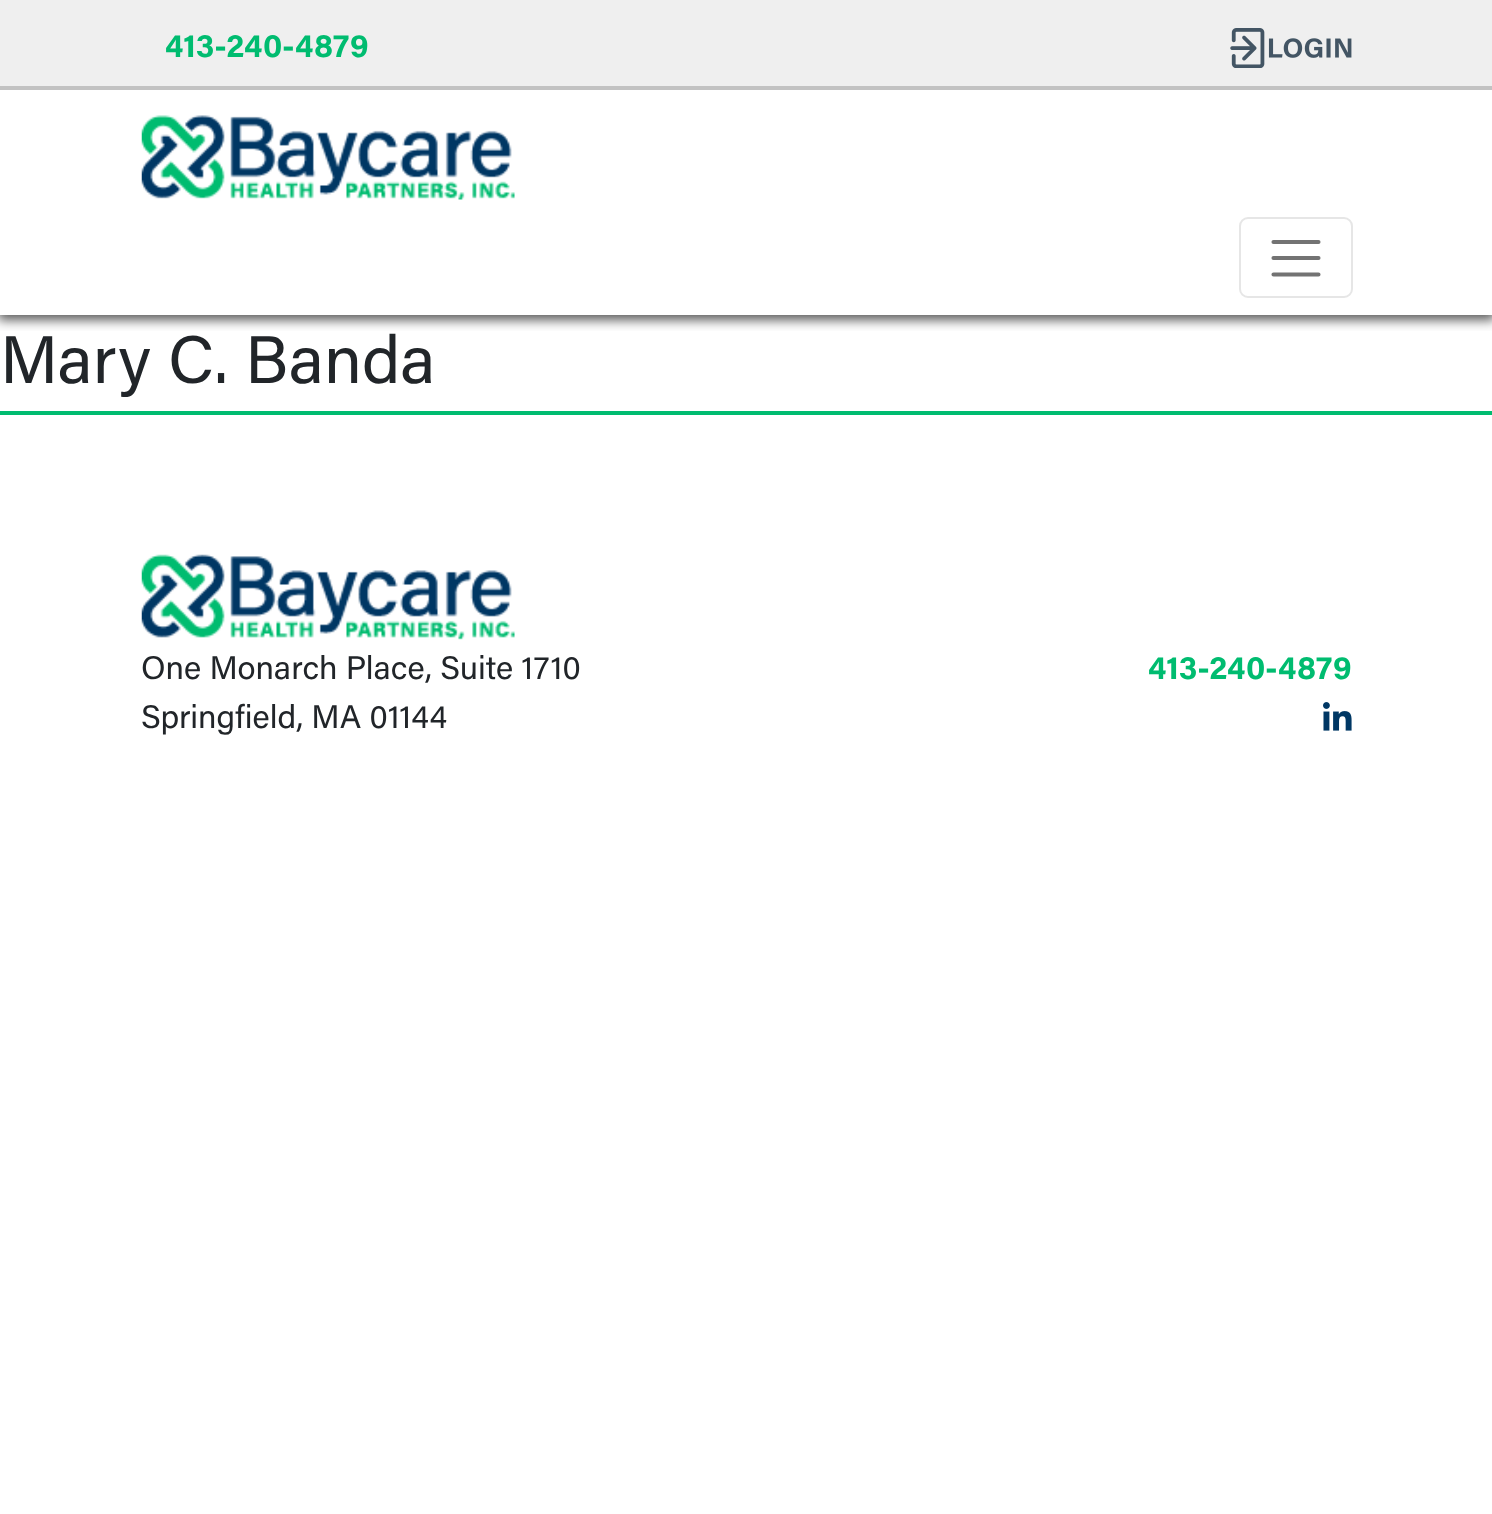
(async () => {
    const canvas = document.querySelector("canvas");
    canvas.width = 1492;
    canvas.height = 1514;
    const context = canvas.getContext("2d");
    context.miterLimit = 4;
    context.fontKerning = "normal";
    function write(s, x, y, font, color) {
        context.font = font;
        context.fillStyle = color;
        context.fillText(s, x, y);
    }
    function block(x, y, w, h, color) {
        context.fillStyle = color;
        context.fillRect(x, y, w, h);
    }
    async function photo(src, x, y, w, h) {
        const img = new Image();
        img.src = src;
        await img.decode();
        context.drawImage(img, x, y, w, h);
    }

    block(0, 0, 1492, 1514, "rgb(255, 255, 255)");
    context.save();
    context.beginPath();
    context.rect(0, 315, 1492, 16);
    context.clip();
    context.fillStyle = "rgba(0, 0, 0, 0.66)";
    context.filter = "blur(6px)";
    context.beginPath();
    context.rect(-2, 2, 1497, 318);
    context.fill();
    context.filter = "none";
    context.restore();
    block(0, 0, 1492, 86, "rgb(239, 239, 239)");
    block(0, 86, 1492, 4, "rgb(194, 194, 194)");
    write("413-240-4879", 165, 57, "bold 32.7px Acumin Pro", "rgb(0, 188, 112)");
    await photo("media/1.png", 1230, 28, 122, 40);
    await photo("media/2.png", 141, 115, 374, 85);
    context.beginPath();
    context.roundRect(1240, 218, 112, 79, 8);
    context.strokeStyle = "rgb(230, 230, 230)";
    context.lineWidth = 2;
    context.stroke();
    context.beginPath();
    context.moveTo(1273.5, 242);
    context.lineTo(1318.5, 242);
    context.moveTo(1273.5, 258);
    context.lineTo(1318.5, 258);
    context.moveTo(1273.5, 274.5);
    context.lineTo(1318.5, 274.5);
    context.strokeStyle = "rgb(115, 115, 115)";
    context.lineWidth = 4.1;
    context.lineCap = "round";
    context.stroke();
    write("Mary C. Banda", 0, 383, "67.25px Acumin Pro", "rgb(33, 37, 41)");
    block(0, 411, 1492, 4, "rgb(0, 188, 112)");
    await photo("media/3.png", 141, 554, 374, 86);
    write("One Monarch Place, Suite 1710", 141, 679, "32.7px Acumin Pro", "rgb(33, 37, 41)");
    write("Springfield, MA 01144", 141, 728, "32.7px Acumin Pro", "rgb(33, 37, 41)");
    write("413-240-4879", 1148, 679, "bold 32.7px Acumin Pro", "rgb(0, 188, 112)");
    await photo("media/4.png", 1323, 702, 29, 29);
})();
